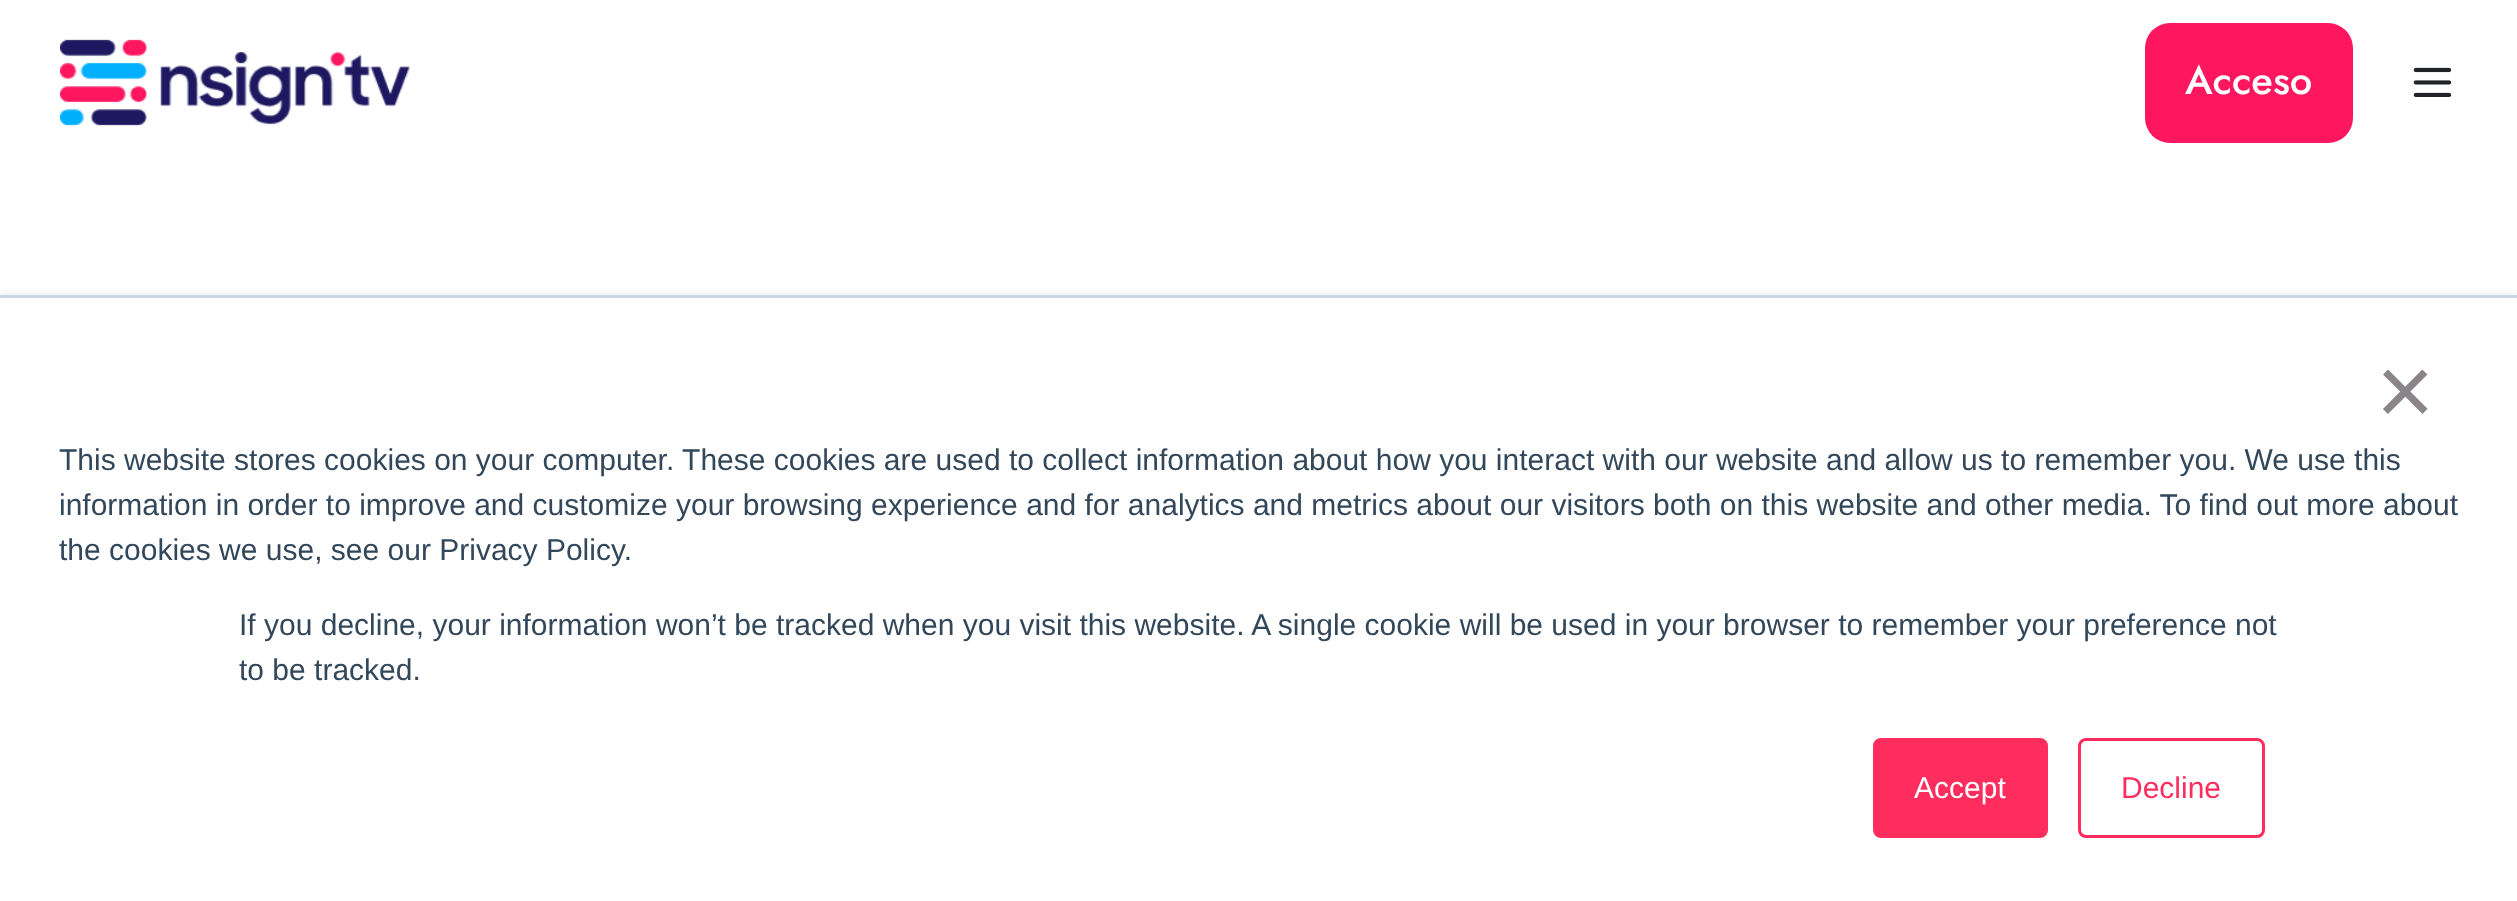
<?xml version="1.0" encoding="UTF-8"?>
<svg xmlns="http://www.w3.org/2000/svg" width="2517" height="901">
    <defs>
        <filter id="blur1" x="-50%" y="-200%" width="200%" height="500%"><feGaussianBlur stdDeviation="4"/></filter>
    </defs>
    <rect width="100%" height="100%" fill="#FFFFFF"/>
    <image x="60" y="39" width="350" height="87" href="img_01.png"/>
    <rect x="2145" y="23" width="208" height="120" rx="25" fill="#FE175F"/>
    <text x="2185" y="94" font-family="Jost" font-size="40" font-weight="500" fill="#FFFFFF">Acceso</text>
    <image x="2413" y="67" width="39" height="30" href="img_02.png"/>
    <rect x="0" y="293" width="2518" height="607" fill="#EAF0F6" filter="url(#blur1)"/>
    <rect x="0" y="298" width="2517" height="603" fill="#FFFFFF"/>
    <rect x="0" y="295" width="2517" height="3" fill="#CBD6E2"/>
    <text x="2376" y="425" font-family="Liberation Sans" font-size="100" fill="#8B8589">×</text>
    <text font-family="Liberation Sans" font-size="30" fill="#33475B">
        <tspan x="59" y="470">This website stores cookies on your computer. These cookies are used to collect information about how you interact with our website and allow us to remember you. We use this</tspan>
        <tspan x="59" y="515">information in order to improve and customize your browsing experience and for analytics and metrics about our visitors both on this website and other media. To find out more about</tspan>
        <tspan x="59" y="560">the cookies we use, see our Privacy Policy.</tspan>
    </text>
    <text font-family="Liberation Sans" font-size="30" fill="#33475B">
        <tspan x="239" y="635">If you decline, your information won’t be tracked when you visit this website. A single cookie will be used in your browser to remember your preference not</tspan>
        <tspan x="239" y="680">to be tracked.</tspan>
    </text>
    <rect x="1874.5" y="739.5" width="172" height="97" rx="6.5" fill="#FF2D5E" stroke="#FF2D5E" stroke-width="3"/>
    <text x="1914" y="798" font-family="Liberation Sans" font-size="30" fill="#FFFFFF">Accept</text>
    <rect x="2079.5" y="739.5" width="184" height="97" rx="6.5" fill="none" stroke="#FF2D5E" stroke-width="3"/>
    <text x="2121" y="798" font-family="Liberation Sans" font-size="30" fill="#FF2D5E">Decline</text>
</svg>
